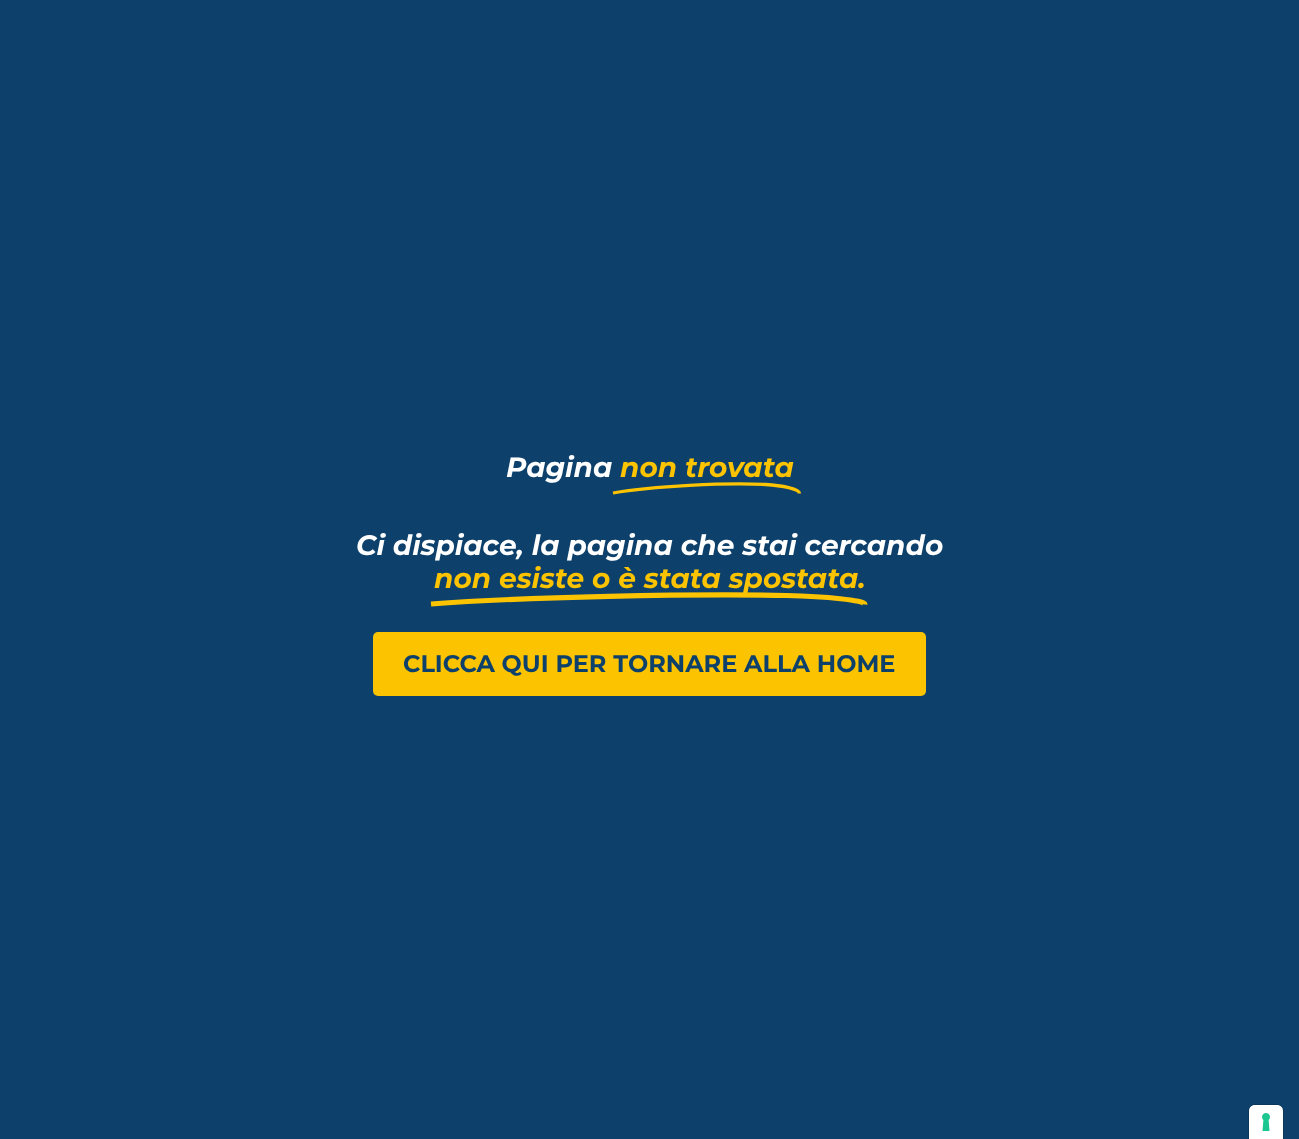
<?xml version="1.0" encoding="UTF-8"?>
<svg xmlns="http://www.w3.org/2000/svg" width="1299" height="1139">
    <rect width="100%" height="100%" fill="#0D416B"/>
    <text x="506" y="477" font-family="Montserrat" font-size="28" font-weight="700" font-style="italic" fill="#FFFFFF">Pagina</text>
    <text x="620" y="477" font-family="Montserrat" font-size="28" font-weight="700" font-style="italic" fill="#FCC300">non trovata</text>
    <path d="M 613 493 C 652.5 486 726.5 482.5 765.5 484.5 C 782 485.5 799.5 489 799.5 493.5" fill="none" stroke="#FCC300" stroke-width="3.3"/>
    <text x="356" y="555" font-family="Montserrat" font-size="28" font-weight="700" font-style="italic" fill="#FFFFFF">Ci dispiace, la pagina che stai cercando</text>
    <path d="M 431 604 C 522.5 597 695 593.5 786.5 595.5 C 824.5 596.5 865.5 600 865 604.5" fill="none" stroke="#FCC300" stroke-width="5.1"/>
    <text x="434" y="588" font-family="Montserrat" font-size="28" font-weight="700" font-style="italic" fill="#FCC300">non esiste o è stata spostata.</text>
    <rect x="373" y="632" width="553" height="64" rx="5" fill="#FCC300"/>
    <text x="403" y="672" font-family="Montserrat" font-size="24" font-weight="700" fill="#0D416B">CLICCA QUI PER TORNARE ALLA HOME</text>
    <path d="M 1255 1104.5 H 1277 C 1280.5 1104.5 1283.5 1107.5 1283.5 1111 V 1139.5 H 1248.5 V 1111 C 1248.5 1107.5 1251.5 1104.5 1255 1104.5 Z" fill="none" stroke="#0B375B"/>
    <path d="M 1255 1105 H 1277 C 1280.5 1105 1283 1107.5 1283 1111 V 1139 H 1249 V 1111 C 1249 1107.5 1251.5 1105 1255 1105 Z" fill="#FFFFFF"/>
    <image x="1262" y="1113" width="8" height="18" href="img_01.png"/>
</svg>
